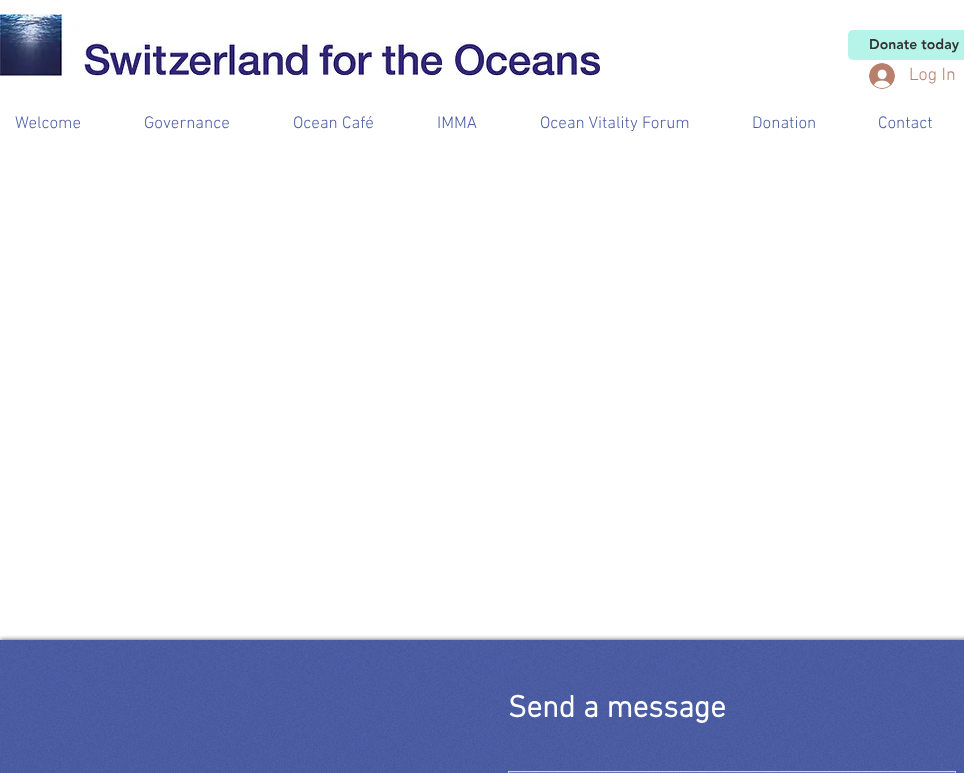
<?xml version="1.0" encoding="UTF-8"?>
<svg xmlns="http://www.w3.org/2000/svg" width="964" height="773">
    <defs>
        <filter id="blur1" x="-50%" y="-200%" width="200%" height="500%"><feGaussianBlur stdDeviation="2.5"/></filter>
    </defs>
    <rect width="100%" height="100%" fill="#FFFFFF"/>
    <image x="0" y="14" width="600" height="62" href="img_01.png"/>
    <rect x="848" y="30" width="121" height="30" rx="5" fill="#B6F3E8"/>
    <text x="869" y="49" font-family="'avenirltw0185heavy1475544'" font-size="14" font-weight="900" fill="#323232">Donate today</text>
    <image x="869" y="63" width="26" height="26" href="img_02.png"/>
    <text x="909" y="80" font-family="'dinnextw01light'" font-size="18" font-weight="300" fill="#B97F6D">Log In</text>
    <text x="15" y="128" font-family="'dinnextw01light'" font-size="17" font-weight="300" fill="#4B5DA6">Welcome</text>
    <text x="144" y="128" font-family="'dinnextw01light'" font-size="17" font-weight="300" fill="#4B5DA6">Governance</text>
    <text x="293" y="128" font-family="'dinnextw01light'" font-size="17" font-weight="300" fill="#4B5DA6">Ocean Café</text>
    <text x="437" y="128" font-family="'dinnextw01light'" font-size="17" font-weight="300" fill="#4B5DA6">IMMA</text>
    <text x="540" y="128" font-family="'dinnextw01light'" font-size="17" font-weight="300" fill="#4B5DA6">Ocean Vitality Forum</text>
    <text x="752" y="128" font-family="'dinnextw01light'" font-size="17" font-weight="300" fill="#4B5DA6">Donation</text>
    <text x="878" y="128" font-family="'dinnextw01light'" font-size="17" font-weight="300" fill="#4B5DA6">Contact</text>
    <rect x="0" y="640" width="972" height="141" fill="#000000" fill-opacity="0.7" filter="url(#blur1)"/>
    <rect x="0" y="640" width="964" height="133" fill="#4B5DA6"/>
    <image x="0" y="640" width="964" height="133" href="img_03.png"/>
    <text x="508" y="717" font-family="'dinnextw01light'" font-size="31" font-weight="700" fill="#FFFFFF">Send a message</text>
    <rect x="508" y="771" width="448" height="2" fill="#FFFFFF" fill-opacity="0.14"/>
    <rect x="508.5" y="771.5" width="447" height="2" fill="none" stroke="#FFFFFF" stroke-opacity="0.66"/>
</svg>
